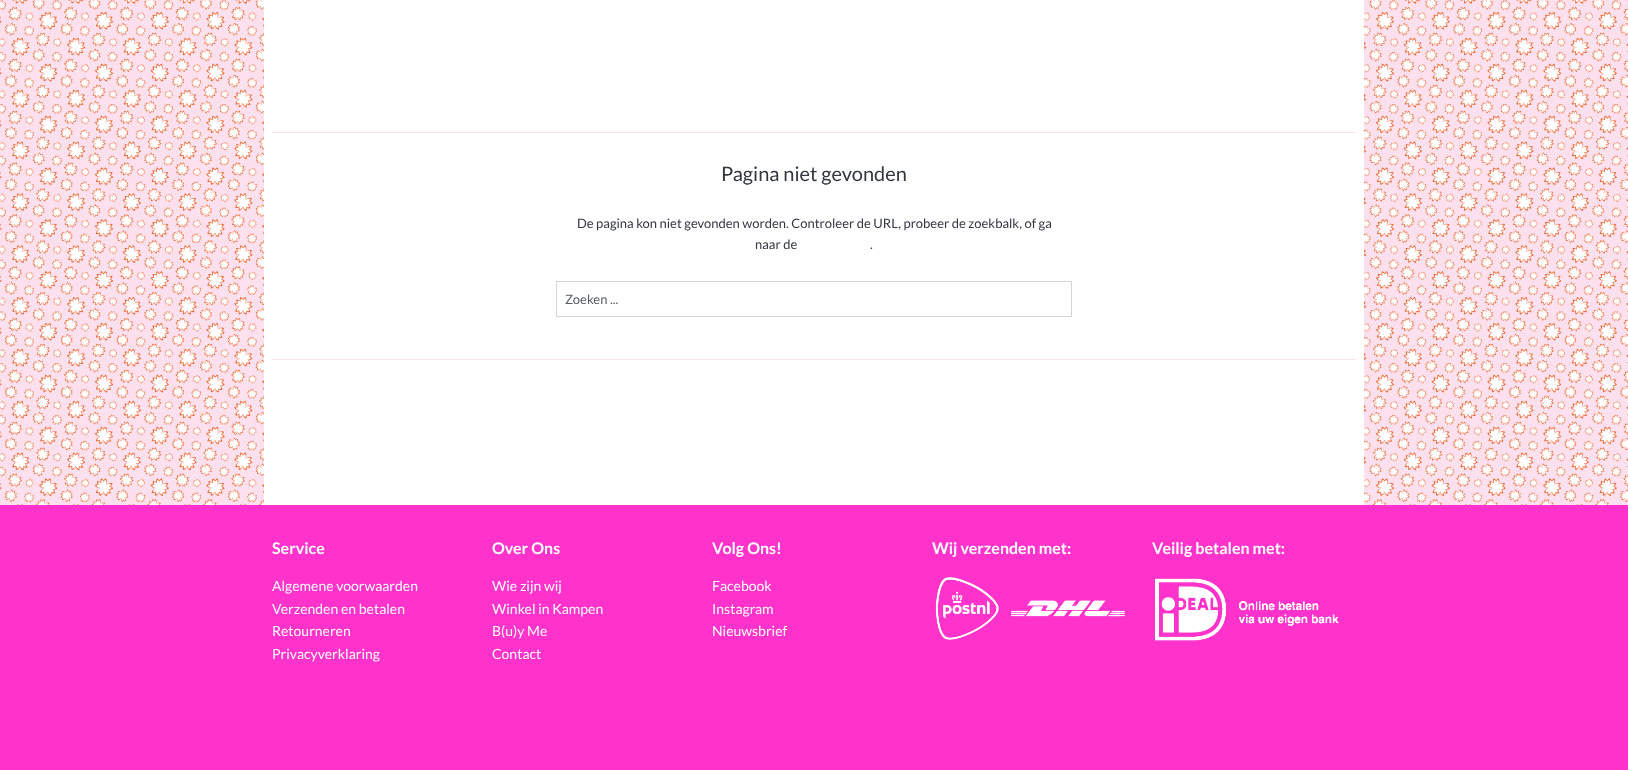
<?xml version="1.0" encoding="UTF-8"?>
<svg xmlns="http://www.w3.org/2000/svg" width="1628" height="770">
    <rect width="100%" height="100%" fill="#FCE0ED"/>
    <image x="0" y="0" width="1628" height="505" href="img_01.png"/>
    <rect x="264" y="0" width="1100" height="505" fill="#FFFFFF"/>
    <rect x="272" y="132" width="1084" height="1" fill="#FCE0ED"/>
    <rect x="272" y="359" width="1084" height="1" fill="#FCE0ED"/>
    <text x="721" y="181" font-family="Lato" font-size="20" fill="#333740">Pagina niet gevonden</text>
    <text x="577" y="228" font-family="Lato" font-size="13" fill="#333740">De pagina kon niet gevonden worden. Controleer de URL, probeer de zoekbalk, of ga</text>
    <text x="755" y="249" font-family="Lato" font-size="13" fill="#333740">naar de</text>
    <text x="870" y="249" font-family="Lato" font-size="13" fill="#333740">.</text>
    <rect x="556.5" y="281.5" width="515" height="35" fill="none" stroke="#D3D5D9"/>
    <text x="565" y="304" font-family="Lato" font-size="13" fill="#575B62">Zoeken ...</text>
    <rect x="0" y="505" width="1628" height="265" fill="#FF33CC"/>
    <text x="272" y="554" font-family="Lato" font-size="16" font-weight="700" fill="#FFFFFF">Service</text>
    <text font-family="Lato" font-size="14" fill="#FFFFFF">
        <tspan x="272" y="591">Algemene voorwaarden</tspan>
        <tspan x="272" y="614">Verzenden en betalen</tspan>
        <tspan x="272" y="636">Retourneren</tspan>
        <tspan x="272" y="659">Privacyverklaring</tspan>
    </text>
    <text x="492" y="554" font-family="Lato" font-size="16" font-weight="700" fill="#FFFFFF">Over Ons</text>
    <text font-family="Lato" font-size="14" fill="#FFFFFF">
        <tspan x="492" y="591">Wie zijn wij</tspan>
        <tspan x="492" y="614">Winkel in Kampen</tspan>
        <tspan x="492" y="636">B(u)y Me</tspan>
        <tspan x="492" y="659">Contact</tspan>
    </text>
    <text x="712" y="554" font-family="Lato" font-size="16" font-weight="700" fill="#FFFFFF">Volg Ons!</text>
    <text font-family="Lato" font-size="14" fill="#FFFFFF">
        <tspan x="712" y="591">Facebook</tspan>
        <tspan x="712" y="614">Instagram</tspan>
        <tspan x="712" y="636">Nieuwsbrief</tspan>
    </text>
    <text x="932" y="554" font-family="Lato" font-size="16" font-weight="700" fill="#FFFFFF">Wij verzenden met:</text>
    <image x="935" y="577" width="190" height="63" href="img_02.png"/>
    <text x="1152" y="554" font-family="Lato" font-size="16" font-weight="700" fill="#FFFFFF">Veilig betalen met:</text>
    <image x="1155" y="578" width="184" height="63" href="img_03.png"/>
</svg>
